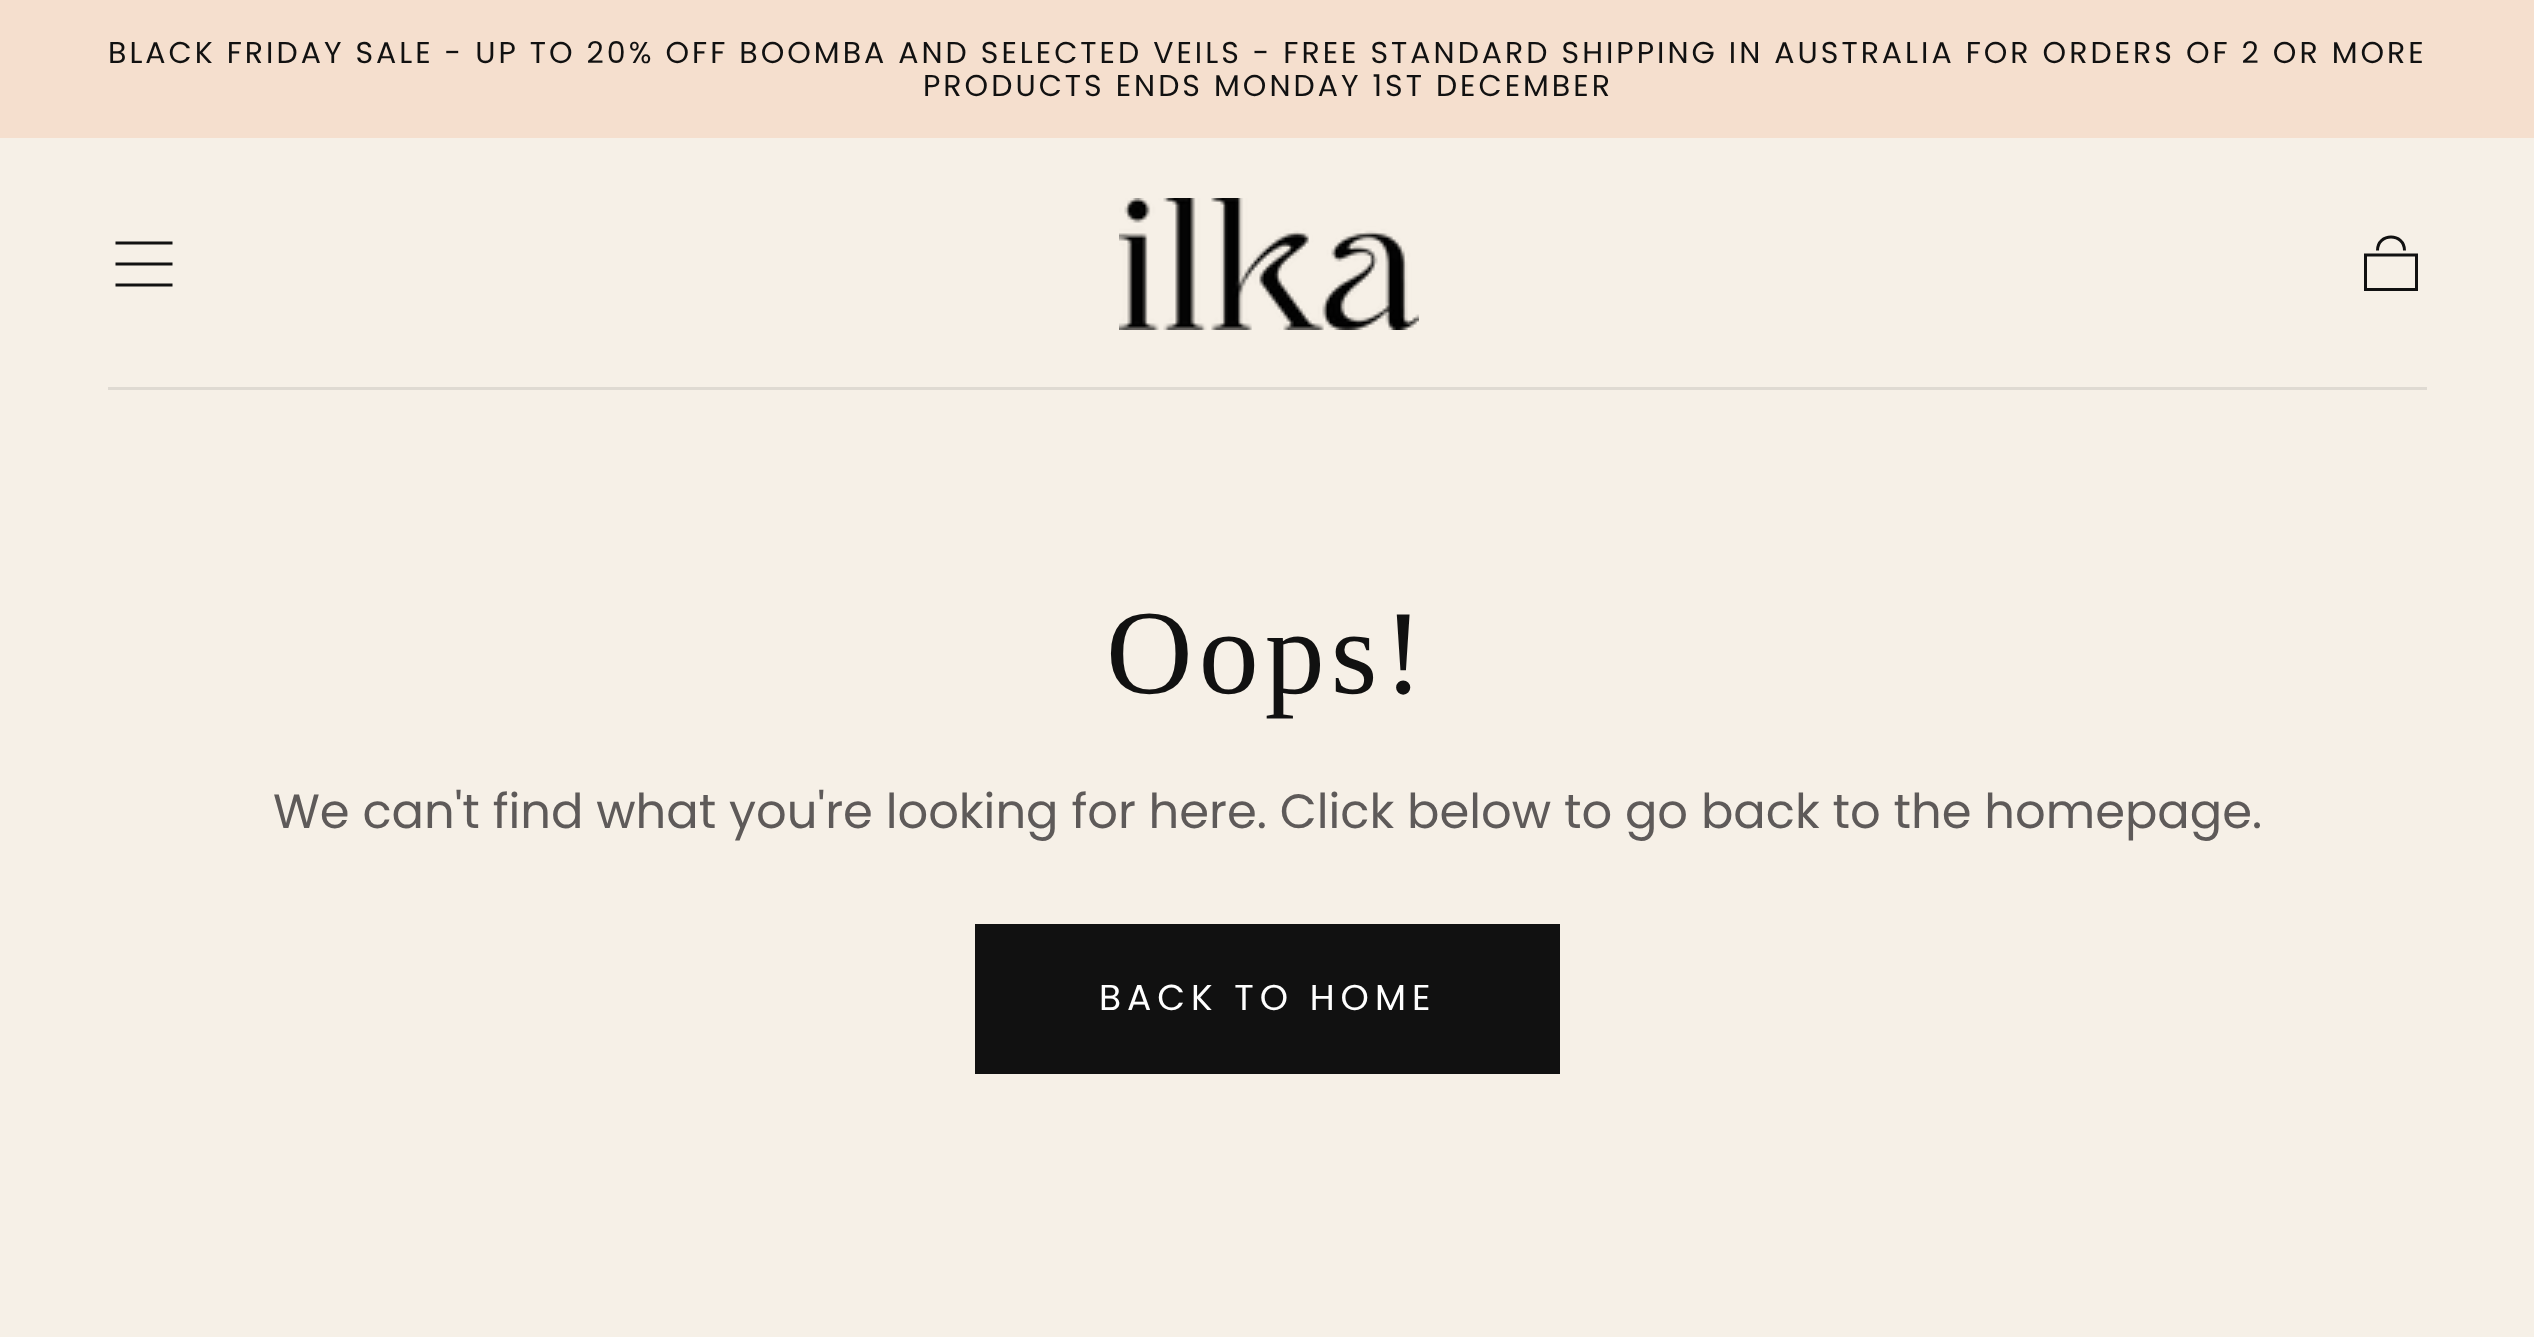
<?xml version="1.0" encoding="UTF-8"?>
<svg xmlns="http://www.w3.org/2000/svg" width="2534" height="1337">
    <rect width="100%" height="100%" fill="#F6F0E7"/>
    <rect x="0" y="0" width="2534" height="138" fill="#F5DFCE"/>
    <text x="108" y="63" font-family="Poppins" font-size="30" letter-spacing="3" fill="#111111">BLACK FRIDAY SALE - UP TO 20% OFF BOOMBA AND SELECTED VEILS - FREE STANDARD SHIPPING IN AUSTRALIA FOR ORDERS OF 2 OR MORE</text>
    <text x="923" y="96" font-family="Poppins" font-size="30" letter-spacing="3" fill="#111111">PRODUCTS ENDS MONDAY 1ST DECEMBER</text>
    <path d="M 117 243 H 171 M 117 264 H 171 M 117 285 H 171" fill="none" stroke="#111111" stroke-width="3" stroke-linecap="square"/>
    <image x="1119" y="198" width="300" height="132" href="img_01.png"/>
    <path d="M 2416.5 289.5 H 2365.5 V 255 H 2416.5 Z M 2404.5 250.5 C 2404.5 232.5 2377.5 232.5 2377.5 250.5" fill="none" stroke="#111111" stroke-width="3"/>
    <rect x="108" y="387" width="2319" height="3" fill="#DFDAD2"/>
    <text x="1106" y="693" font-family="Liberation Serif" font-size="120" letter-spacing="6" fill="#111111">Oops!</text>
    <text x="273" y="828" font-family="Poppins" font-size="48" fill="#5E5A59">We can't find what you're looking for here. Click below to go back to the homepage.</text>
    <rect x="975" y="924" width="585" height="150" fill="#111111"/>
    <text x="1099" y="1010" font-family="Poppins" font-size="36" letter-spacing="6" fill="#FFFFFF">BACK TO HOME</text>
</svg>
